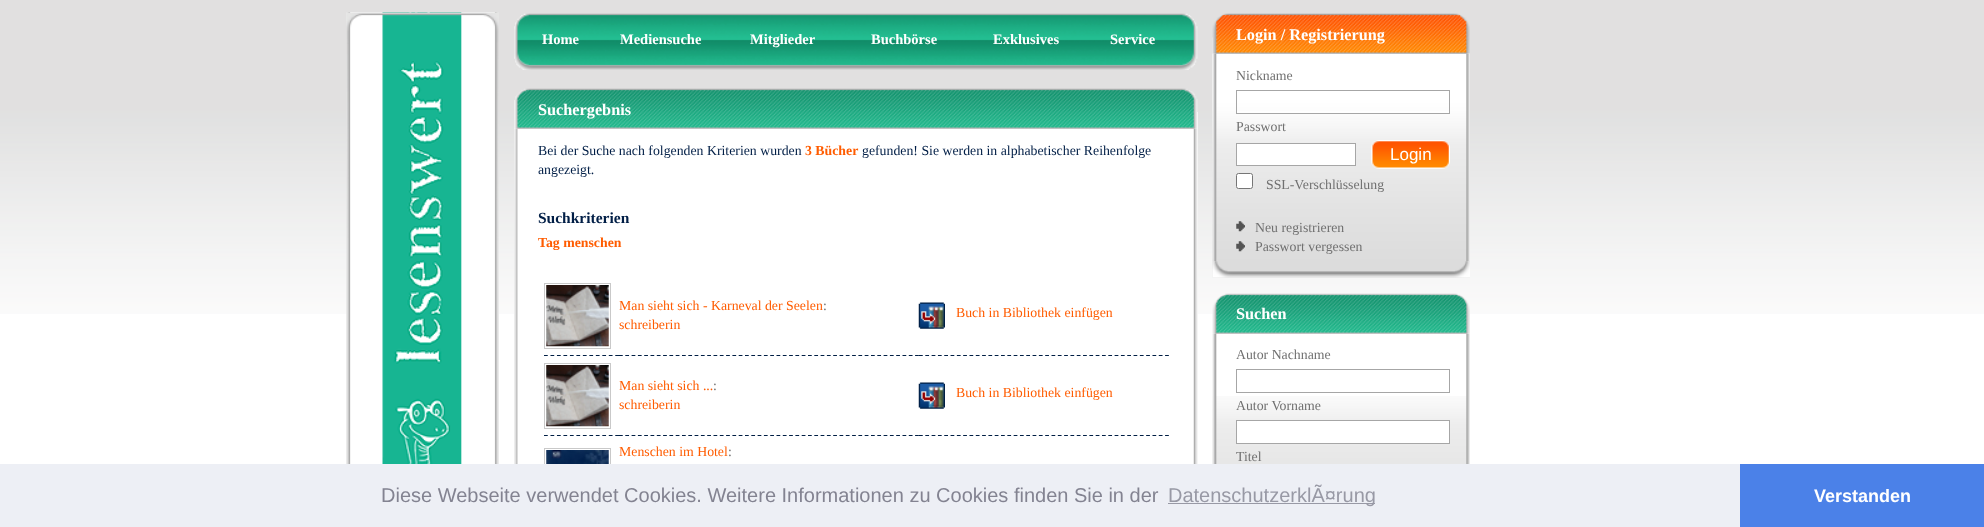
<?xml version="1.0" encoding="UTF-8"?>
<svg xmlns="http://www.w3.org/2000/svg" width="1984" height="527">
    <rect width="100%" height="100%" fill="#FFFFFF"/>
    <image x="0" y="0" width="1984" height="314" href="img_01.png"/>
    <image x="346" y="12" width="153" height="452" href="img_02.png"/>
    <image x="346" y="12" width="153" height="452" href="img_03.png"/>
    <image x="514" y="13" width="684" height="57" href="img_04.png"/>
    <text x="542" y="44" font-family="Liberation Serif" font-size="14.5" font-weight="700" fill="#FFFFFF">Home</text>
    <text x="620" y="44" font-family="Liberation Serif" font-size="14.5" font-weight="700" fill="#FFFFFF">Mediensuche</text>
    <text x="750" y="44" font-family="Liberation Serif" font-size="14.5" font-weight="700" fill="#FFFFFF">Mitglieder</text>
    <text x="871" y="44" font-family="Liberation Serif" font-size="14.5" font-weight="700" fill="#FFFFFF">Buchbörse</text>
    <text x="993" y="44" font-family="Liberation Serif" font-size="14.5" font-weight="700" fill="#FFFFFF">Exklusives</text>
    <text x="1110" y="44" font-family="Liberation Serif" font-size="14.5" font-weight="700" fill="#FFFFFF">Service</text>
    <rect x="514" y="112" width="684" height="202" fill="#FFFFFF"/>
    <image x="514" y="88" width="684" height="41" href="img_05.png"/>
    <text x="538" y="115" font-family="Liberation Serif" font-size="16.25" font-weight="700" fill="#FFFFFF">Suchergebnis</text>
    <image x="514" y="128" width="684" height="336" href="img_06.png"/>
    <text x="538" y="155" font-family="Liberation Serif" font-size="13.8" fill="#011E46">Bei der Suche nach folgenden Kriterien wurden</text>
    <text x="805" y="155" font-family="Liberation Serif" font-size="13.8" font-weight="700" fill="#FF5C00">3 Bücher</text>
    <text x="862" y="155" font-family="Liberation Serif" font-size="13.8" fill="#011E46">gefunden! Sie werden in alphabetischer Reihenfolge</text>
    <text x="538" y="174" font-family="Liberation Serif" font-size="13.8" fill="#011E46">angezeigt.</text>
    <text x="538" y="223" font-family="Liberation Serif" font-size="15.5" font-weight="700" fill="#011E46">Suchkriterien</text>
    <text x="538" y="247" font-family="Liberation Serif" font-size="13.8" font-weight="700" fill="#FF5C00">Tag menschen</text>
    <path d="M 544 355.5 H 619" fill="none" stroke="#001E44" stroke-width="1.2" stroke-dasharray="3.75 2.73"/>
    <rect x="544.5" y="283.5" width="66" height="65" fill="none" stroke="#C9C9C9"/>
    <image x="546" y="285" width="63" height="62" href="img_07.png"/>
    <path d="M 619 355.5 H 919" fill="none" stroke="#001E44" stroke-width="1.2" stroke-dasharray="3.75 2.55"/>
    <text x="619" y="310" font-family="Liberation Serif" font-size="13.8" fill="#FF5C00">Man sieht sich - Karneval der Seelen</text>
    <text x="823" y="310" font-family="Liberation Serif" font-size="13.8" fill="#707070">:</text>
    <text x="619" y="329" font-family="Liberation Serif" font-size="13.8" fill="#FF5C00">schreiberin</text>
    <path d="M 919 355.5 H 1169" fill="none" stroke="#001E44" stroke-width="1.2" stroke-dasharray="3.75 2.56"/>
    <image x="918" y="302" width="27" height="27" href="img_08.png"/>
    <text x="956" y="317" font-family="Liberation Serif" font-size="13.8" fill="#FF5C00">Buch in Bibliothek einfügen</text>
    <path d="M 544 435.5 H 619" fill="none" stroke="#001E44" stroke-width="1.2" stroke-dasharray="3.75 2.73"/>
    <rect x="544.5" y="363.5" width="66" height="65" fill="none" stroke="#C9C9C9"/>
    <image x="546" y="365" width="63" height="62" href="img_09.png"/>
    <path d="M 619 435.5 H 919" fill="none" stroke="#001E44" stroke-width="1.2" stroke-dasharray="3.75 2.55"/>
    <text x="619" y="390" font-family="Liberation Serif" font-size="13.8" fill="#FF5C00">Man sieht sich ...</text>
    <text x="713" y="390" font-family="Liberation Serif" font-size="13.8" fill="#707070">:</text>
    <text x="619" y="409" font-family="Liberation Serif" font-size="13.8" fill="#FF5C00">schreiberin</text>
    <path d="M 919 435.5 H 1169" fill="none" stroke="#001E44" stroke-width="1.2" stroke-dasharray="3.75 2.56"/>
    <image x="918" y="382" width="27" height="27" href="img_08.png"/>
    <text x="956" y="397" font-family="Liberation Serif" font-size="13.8" fill="#FF5C00">Buch in Bibliothek einfügen</text>
    <rect x="544.5" y="448.5" width="66" height="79" fill="none" stroke="#C9C9C9"/>
    <image x="546" y="450" width="63" height="14" href="img_10.png"/>
    <text x="619" y="456" font-family="Liberation Serif" font-size="13.8" fill="#FF5C00">Menschen im Hotel</text>
    <text x="728" y="456" font-family="Liberation Serif" font-size="13.8" fill="#707070">:</text>
    <image x="1212" y="37" width="258" height="241" href="img_11.png"/>
    <image x="1212" y="13" width="258" height="41" href="img_12.png"/>
    <text x="1236" y="40" font-family="Liberation Serif" font-size="16.25" font-weight="700" fill="#FFFFFF">Login / Registrierung</text>
    <image x="1213" y="53" width="257" height="209" href="img_13.png"/>
    <text x="1236" y="80" font-family="Liberation Serif" font-size="13.8" fill="#707070">Nickname</text>
    <rect x="1237" y="111" width="212" height="2" fill="#FFFFFF"/>
    <rect x="1236.5" y="90.5" width="213" height="23" fill="none" stroke="#A6A6A6"/>
    <text x="1236" y="131" font-family="Liberation Serif" font-size="13.8" fill="#707070">Passwort</text>
    <rect x="1236.5" y="143.5" width="119" height="22" fill="#FFFFFF" stroke="#A6A6A6"/>
    <image x="1371" y="140" width="79" height="29" href="img_14.png"/>
    <text x="1390" y="160" font-family="Liberation Sans" font-size="17" fill="#FFFFFF">Login</text>
    <rect x="1236.5" y="173.5" width="16" height="15" rx="2" fill="#FFFFFF" stroke="#767676"/>
    <text x="1266" y="189" font-family="Liberation Serif" font-size="13.8" fill="#707070">SSL-Verschlüsselung</text>
    <image x="1236" y="221" width="9" height="11" href="img_15.png"/>
    <text x="1255" y="232" font-family="Liberation Serif" font-size="13.8" fill="#707070">Neu registrieren</text>
    <image x="1236" y="241" width="9" height="11" href="img_16.png"/>
    <text x="1255" y="251" font-family="Liberation Serif" font-size="13.8" fill="#707070">Passwort vergessen</text>
    <image x="1212" y="261" width="258" height="17" href="img_17.png"/>
    <image x="1212" y="396" width="255" height="68" href="img_18.png"/>
    <image x="1212" y="293" width="258" height="41" href="img_19.png"/>
    <text x="1236" y="319" font-family="Liberation Serif" font-size="16.25" font-weight="700" fill="#FFFFFF">Suchen</text>
    <image x="1212" y="333" width="258" height="131" href="img_20.png"/>
    <text x="1236" y="359" font-family="Liberation Serif" font-size="13.8" fill="#707070">Autor Nachname</text>
    <rect x="1236.5" y="369.5" width="213" height="23" fill="none" stroke="#A6A6A6"/>
    <text x="1236" y="410" font-family="Liberation Serif" font-size="13.8" fill="#707070">Autor Vorname</text>
    <rect x="1236.5" y="420.5" width="213" height="23" fill="#FFFFFF" stroke="#A6A6A6"/>
    <text x="1236" y="461" font-family="Liberation Serif" font-size="13.8" fill="#707070">Titel</text>
    <rect x="0" y="464" width="1740" height="63" fill="#EDEFF5"/>
    <text x="381" y="502" font-family="Liberation Sans" font-size="20" fill="#838391">Diese Webseite verwendet Cookies. Weitere Informationen zu Cookies finden Sie in der</text>
    <rect x="1168" y="503" width="207" height="1" fill="#9899A5"/>
    <text x="1168" y="502" font-family="Liberation Sans" font-size="20" fill="#9899A5">DatenschutzerklÃ¤rung</text>
    <rect x="1740" y="464" width="244" height="63" fill="#4B81E8"/>
    <text x="1814" y="502" font-family="Liberation Sans" font-size="18" font-weight="700" fill="#FFFFFF">Verstanden</text>
</svg>
